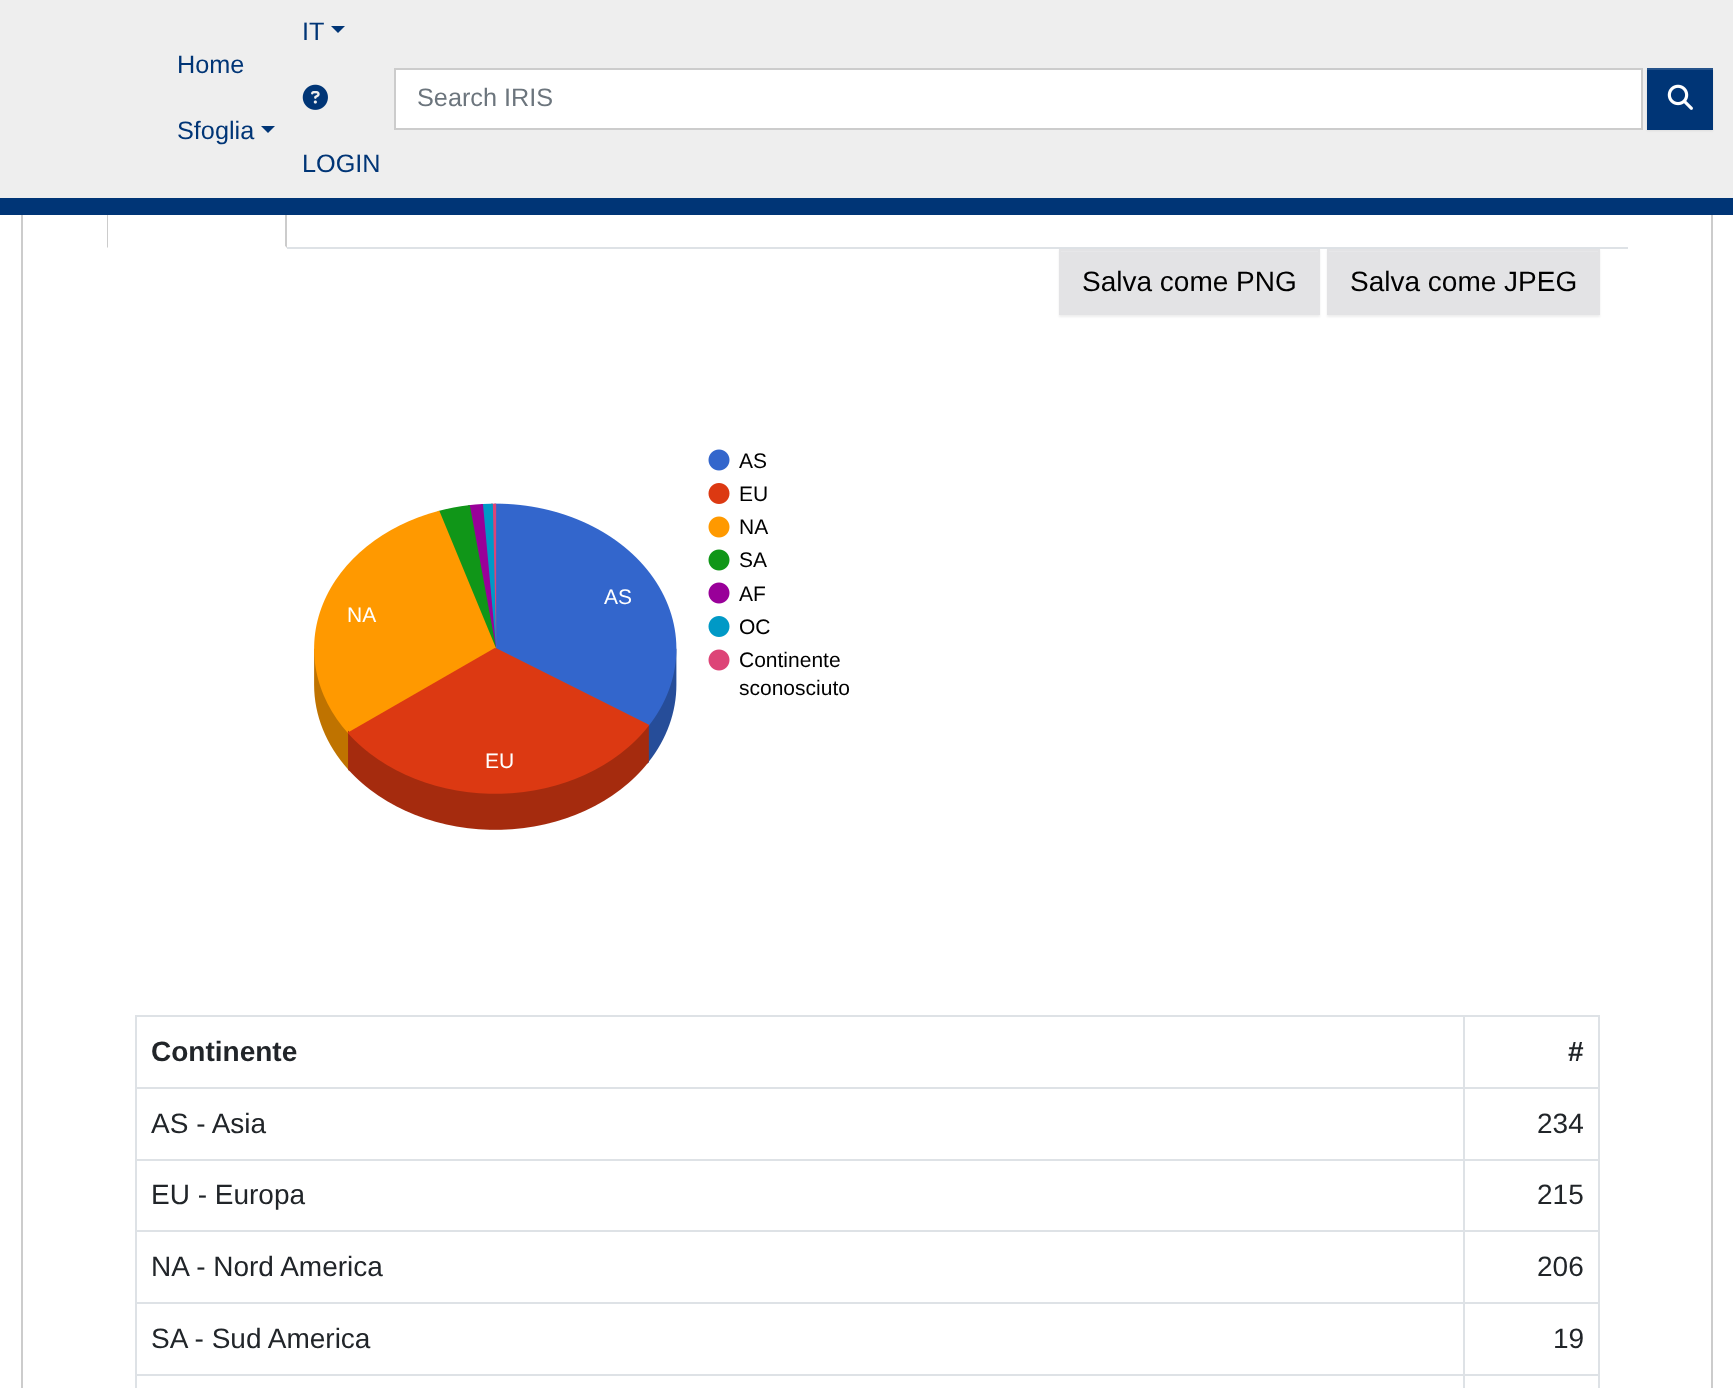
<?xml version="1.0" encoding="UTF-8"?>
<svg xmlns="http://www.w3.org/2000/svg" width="1733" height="1388">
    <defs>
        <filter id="blur1" x="-50%" y="-200%" width="200%" height="500%"><feGaussianBlur stdDeviation="1"/></filter>
    </defs>
    <rect width="100%" height="100%" fill="#FFFFFF"/>
    <rect x="22" y="-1" width="1690" height="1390" fill="none" stroke="#CCCCCC" stroke-width="2"/>
    <path d="M 287 248 V 191 C 287 188 286 185 284 183 L 282 185 C 284 186 285 189 285 191 V 246 Z" fill="#CCCCCC"/>
    <path d="M 286 248 H 107 L 108 247 H 285 V 246 Z" fill="#FFFFFF"/>
    <path d="M 107 248 V 191 C 107 188 108 185 110 183 L 111 184 C 109 186 108 188 108 191 V 247 Z" fill="#CCCCCC"/>
    <rect x="0" y="0" width="1733" height="198" fill="#EEEEEE"/>
    <rect x="0" y="198" width="1733" height="17" fill="#003576"/>
    <text x="177" y="73" font-family="Liberation Sans" font-size="25.25" fill="#003576">Home</text>
    <text x="177" y="139" font-family="Liberation Sans" font-size="25.25" fill="#003576">Sfoglia</text>
    <path d="M 261 126 H 275 L 268 133 Z" fill="#003576"/>
    <text x="302" y="40" font-family="Liberation Sans" font-size="25.25" fill="#003576">IT</text>
    <path d="M 331 26 H 345 L 338 33 Z" fill="#003576"/>
    <image x="302" y="84" width="26" height="26" href="img_01.png"/>
    <text x="302" y="172" font-family="Liberation Sans" font-size="25.25" fill="#003576">LOGIN</text>
    <rect x="395" y="69" width="1247" height="60" fill="#FFFFFF" stroke="#CCCCCC" stroke-width="2"/>
    <text x="417" y="106" font-family="Liberation Sans" font-size="25.25" fill="#6C757D">Search IRIS</text>
    <rect x="1647" y="70" width="66" height="61" fill="#000000" fill-opacity="0.07" filter="url(#blur1)"/>
    <rect x="1647" y="70" width="66" height="60" fill="#003576"/>
    <rect x="1647" y="68" width="66" height="2" fill="#26538B"/>
    <image x="1667" y="84" width="26" height="26" href="img_02.png"/>
    <rect x="287" y="247" width="1341" height="2" fill="#DEE2E6"/>
    <rect x="1059" y="250" width="261" height="67" fill="#000000" fill-opacity="0.07" filter="url(#blur1)"/>
    <rect x="1061" y="252" width="257" height="61" fill="#E3E3E5"/>
    <rect x="1061" y="251" width="257" height="1" fill="#E7E7E9"/>
    <rect x="1060" y="250" width="259" height="64" fill="none" stroke="#E3E3E5" stroke-width="2"/>
    <text x="1082" y="291" font-family="Liberation Sans" font-size="28" fill="#000000">Salva come PNG</text>
    <rect x="1327" y="250" width="273" height="67" fill="#000000" fill-opacity="0.07" filter="url(#blur1)"/>
    <rect x="1329" y="252" width="269" height="61" fill="#E3E3E5"/>
    <rect x="1328" y="251" width="270" height="1" fill="#E7E7E9"/>
    <rect x="1328" y="250" width="271" height="64" fill="none" stroke="#E3E3E5" stroke-width="2"/>
    <text x="1350" y="291" font-family="Liberation Sans" font-size="28" fill="#000000">Salva come JPEG</text>
    <image x="314" y="449" width="416" height="381" href="img_03.png"/>
    <text font-family="Liberation Sans" font-size="21" fill="#000000">
        <tspan x="739" y="468">AS</tspan>
        <tspan x="739" y="501">EU</tspan>
        <tspan x="739" y="534">NA</tspan>
        <tspan x="739" y="567">SA</tspan>
    </text>
    <text x="604" y="604" font-family="Liberation Sans" font-size="21" fill="#FFFFFF">AS</text>
    <text x="739" y="601" font-family="Liberation Sans" font-size="21" fill="#000000">AF</text>
    <text x="347" y="622" font-family="Liberation Sans" font-size="21" fill="#FFFFFF">NA</text>
    <text font-family="Liberation Sans" font-size="21" fill="#000000">
        <tspan x="739" y="634">OC</tspan>
        <tspan x="739" y="667">Continente</tspan>
        <tspan x="739" y="695">sconosciuto</tspan>
    </text>
    <text x="485" y="768" font-family="Liberation Sans" font-size="21" fill="#FFFFFF">EU</text>
    <rect x="135" y="1374" width="1465" height="2" fill="#DEE2E6"/>
    <rect x="135" y="1015" width="1465" height="2" fill="#DEE2E6"/>
    <rect x="135" y="1087" width="1465" height="2" fill="#DEE2E6"/>
    <rect x="135" y="1159" width="1465" height="2" fill="#DEE2E6"/>
    <rect x="135" y="1230" width="1465" height="2" fill="#DEE2E6"/>
    <rect x="135" y="1302" width="1465" height="2" fill="#DEE2E6"/>
    <rect x="135" y="1015" width="2" height="373" fill="#DEE2E6"/>
    <rect x="1598" y="1015" width="2" height="373" fill="#DEE2E6"/>
    <rect x="1463" y="1015" width="2" height="373" fill="#DEE2E6"/>
    <text x="151" y="1061" font-family="Liberation Sans" font-size="28" font-weight="700" fill="#212529">Continente</text>
    <text x="1568" y="1061" font-family="Liberation Sans" font-size="28" font-weight="700" fill="#212529">#</text>
    <text x="151" y="1133" font-family="Liberation Sans" font-size="28" fill="#212529">AS - Asia</text>
    <text x="1537" y="1133" font-family="Liberation Sans" font-size="28" fill="#212529">234</text>
    <text x="151" y="1204" font-family="Liberation Sans" font-size="28" fill="#212529">EU - Europa</text>
    <text x="1537" y="1204" font-family="Liberation Sans" font-size="28" fill="#212529">215</text>
    <text x="151" y="1276" font-family="Liberation Sans" font-size="28" fill="#212529">NA - Nord America</text>
    <text x="1537" y="1276" font-family="Liberation Sans" font-size="28" fill="#212529">206</text>
    <text x="151" y="1348" font-family="Liberation Sans" font-size="28" fill="#212529">SA - Sud America</text>
    <text x="1553" y="1348" font-family="Liberation Sans" font-size="28" fill="#212529">19</text>
</svg>
